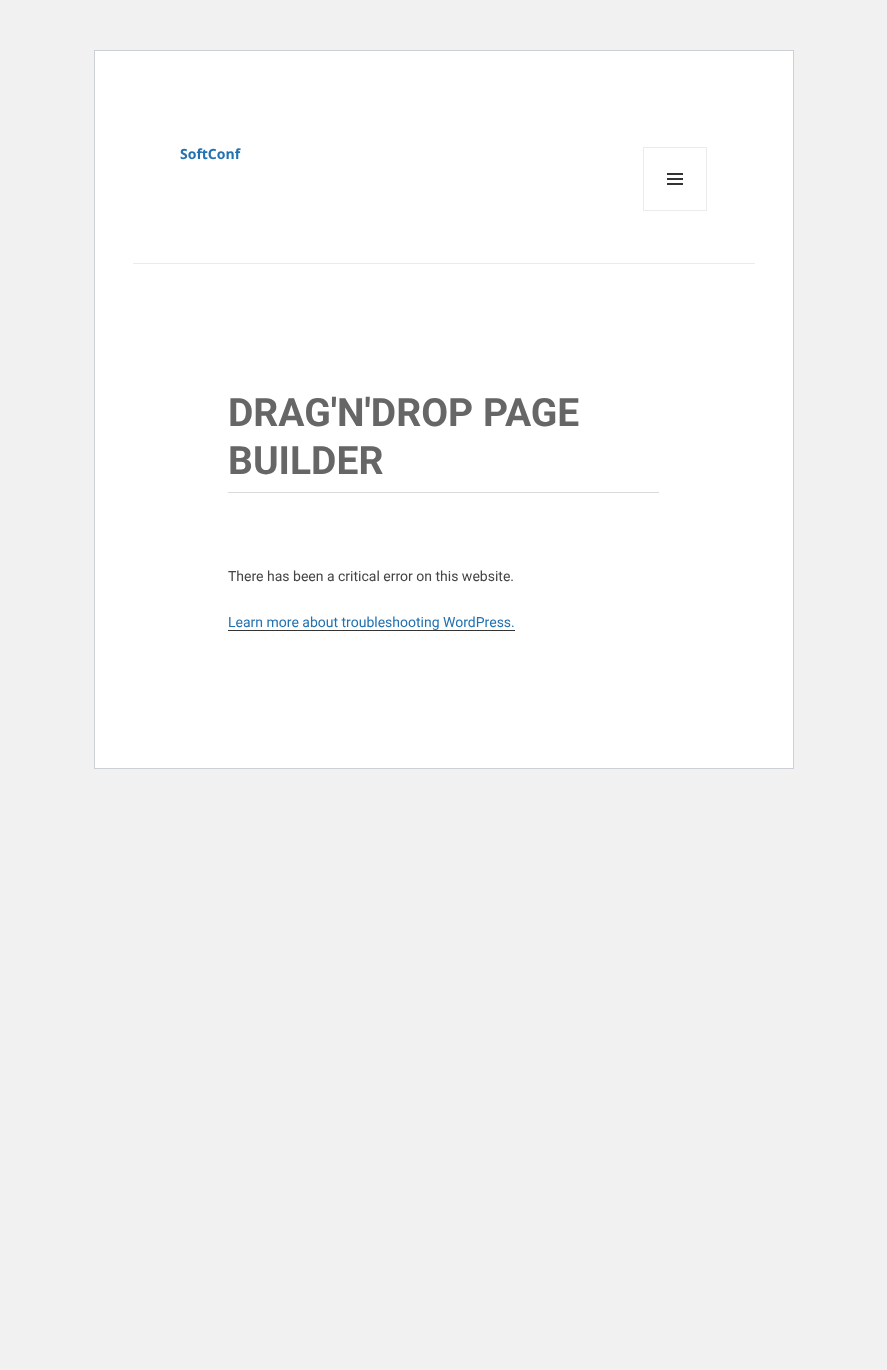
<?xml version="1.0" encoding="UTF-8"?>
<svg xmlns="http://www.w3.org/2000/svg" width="887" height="1370">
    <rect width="100%" height="100%" fill="#F1F1F1"/>
    <rect x="94.5" y="50.5" width="699" height="718" fill="#FFFFFF" stroke="#CCD0D4"/>
    <rect x="133" y="263" width="622" height="1" fill="#EBEBEB"/>
    <text x="180" y="159" font-family="Noto Sans" font-size="14" font-weight="700" fill="#2271B1">SoftConf</text>
    <rect x="643.5" y="147.5" width="63" height="63" fill="none" stroke="#EBEBEB"/>
    <image x="667" y="173" width="16" height="12" href="img_01.png"/>
    <rect x="228" y="492" width="431" height="1" fill="#DADADA"/>
    <text font-family="Roboto" font-size="39" font-weight="700" fill="#666666">
        <tspan x="228" y="426">DRAG'N'DROP PAGE</tspan>
        <tspan x="228" y="474">BUILDER</tspan>
    </text>
    <text x="228" y="581" font-family="Roboto" font-size="14" fill="#444444">There has been a critical error on this website.</text>
    <text x="228" y="627" font-family="Roboto" font-size="14" fill="#2271B1">Learn more about troubleshooting WordPress.</text>
    <rect x="228" y="630" width="287" height="1" fill="#333333"/>
</svg>
